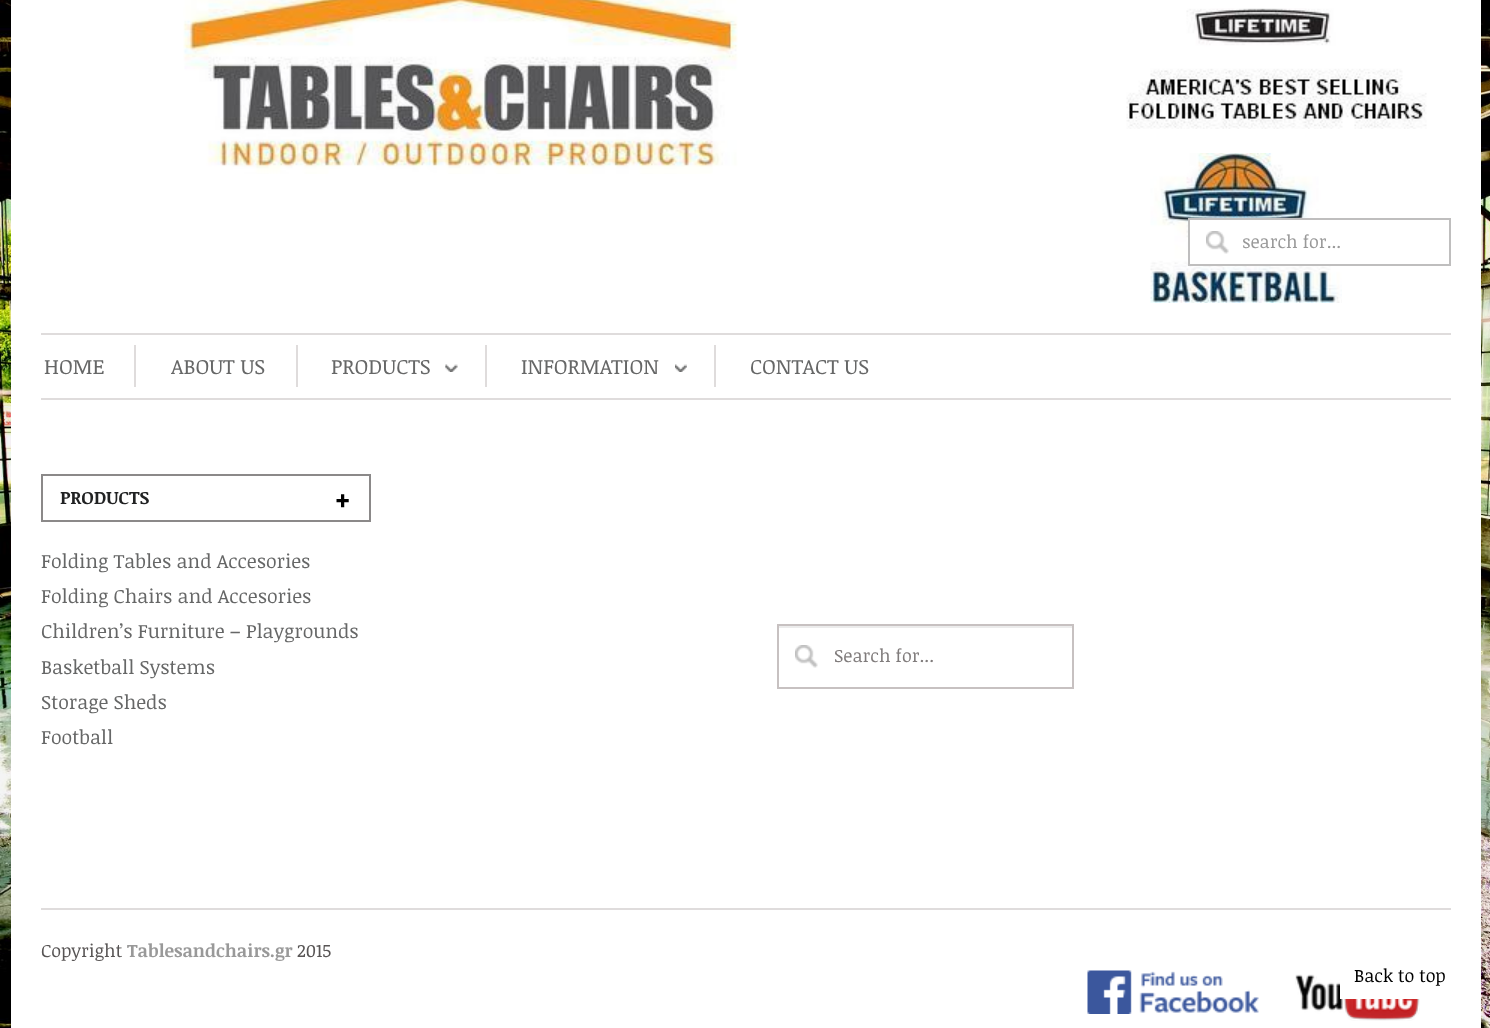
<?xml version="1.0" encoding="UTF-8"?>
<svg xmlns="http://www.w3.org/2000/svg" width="1490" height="1028">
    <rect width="100%" height="100%" fill="#FFFFFF"/>
    <image x="0" y="0" width="1490" height="1028" href="img_01.png"/>
    <rect x="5" y="-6" width="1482" height="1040" fill="none" stroke="#000000" stroke-opacity="0.04" stroke-width="12"/>
    <rect x="11" y="0" width="1470" height="1028" fill="#FFFFFF"/>
    <image x="183" y="0" width="555" height="174" href="img_02.png"/>
    <image x="1126" y="8" width="301" height="121" href="img_03.png"/>
    <image x="1150" y="153" width="192" height="150" href="img_04.png"/>
    <rect x="1190" y="220" width="141" height="44" fill="#FFFFFF"/>
    <image x="1206" y="231" width="23" height="23" href="img_05.png"/>
    <rect x="1189" y="219" width="261" height="46" fill="none" stroke="#BFBEBE" stroke-width="2"/>
    <text x="1242" y="248" font-family="Noticia Text" font-size="18" fill="#999999">search for...</text>
    <rect x="41" y="333" width="1410" height="2" fill="#DFDCDC"/>
    <rect x="41" y="398" width="1410" height="2" fill="#DFDCDC"/>
    <rect x="134" y="345" width="2" height="42" fill="#DFDCDC"/>
    <text x="44" y="374" font-family="Noticia Text" font-size="21" fill="#666767">HOME</text>
    <rect x="296" y="345" width="2" height="42" fill="#DFDCDC"/>
    <text x="171" y="374" font-family="Noticia Text" font-size="21" fill="#666767">ABOUT US</text>
    <rect x="485" y="345" width="2" height="42" fill="#DFDCDC"/>
    <text x="331" y="374" font-family="Noticia Text" font-size="21" fill="#666767">PRODUCTS</text>
    <image x="445" y="364" width="13" height="8" href="img_06.png"/>
    <image x="445" y="364" width="13" height="8" href="img_07.png"/>
    <rect x="714" y="345" width="2" height="42" fill="#DFDCDC"/>
    <text x="521" y="374" font-family="Noticia Text" font-size="21" fill="#666767">INFORMATION</text>
    <image x="675" y="364" width="12" height="8" href="img_08.png"/>
    <image x="675" y="364" width="12" height="8" href="img_09.png"/>
    <text x="750" y="374" font-family="Noticia Text" font-size="21" fill="#666767">CONTACT US</text>
    <rect x="42" y="475" width="328" height="46" fill="none" stroke="#8B8989" stroke-width="2"/>
    <text x="60" y="504" font-family="Noticia Text" font-size="18" font-weight="700" fill="#212223">PRODUCTS</text>
    <text x="334" y="510" font-family="Noticia Text" font-size="32" font-weight="700" fill="#000000">+</text>
    <text font-family="Noticia Text" font-size="19.5" fill="#666767">
        <tspan x="41" y="568">Folding Tables and Accesories</tspan>
        <tspan x="41" y="603">Folding Chairs and Accesories</tspan>
        <tspan x="41" y="638">Children’s Furniture – Playgrounds</tspan>
        <tspan x="41" y="674">Basketball Systems</tspan>
        <tspan x="41" y="709">Storage Sheds</tspan>
        <tspan x="41" y="744">Football</tspan>
    </text>
    <image x="795" y="645" width="23" height="23" href="img_10.png"/>
    <rect x="779" y="626" width="294" height="2" fill="#ECECEC"/>
    <rect x="778" y="625" width="295" height="63" fill="none" stroke="#C7C1C1" stroke-width="2"/>
    <text x="834" y="662" font-family="Noticia Text" font-size="18" fill="#807C7C">Search for...</text>
    <rect x="41" y="908" width="1410" height="2" fill="#DFDCDC"/>
    <text x="41" y="957" font-family="Noticia Text" font-size="18" fill="#585555">Copyright</text>
    <text x="127" y="957" font-family="Noticia Text" font-size="18" font-weight="700" fill="#999999">Tablesandchairs.gr</text>
    <text x="297" y="957" font-family="Noticia Text" font-size="18" fill="#585555">2015</text>
    <image x="1087" y="970" width="172" height="44" href="img_11.png"/>
    <image x="1295" y="974" width="125" height="47" href="img_12.png"/>
    <rect x="1340" y="974" width="80" height="25" fill="#FFFFFF"/>
    <text x="1354" y="982" font-family="Noticia Text" font-size="18" fill="#000000">Back to top</text>
</svg>
